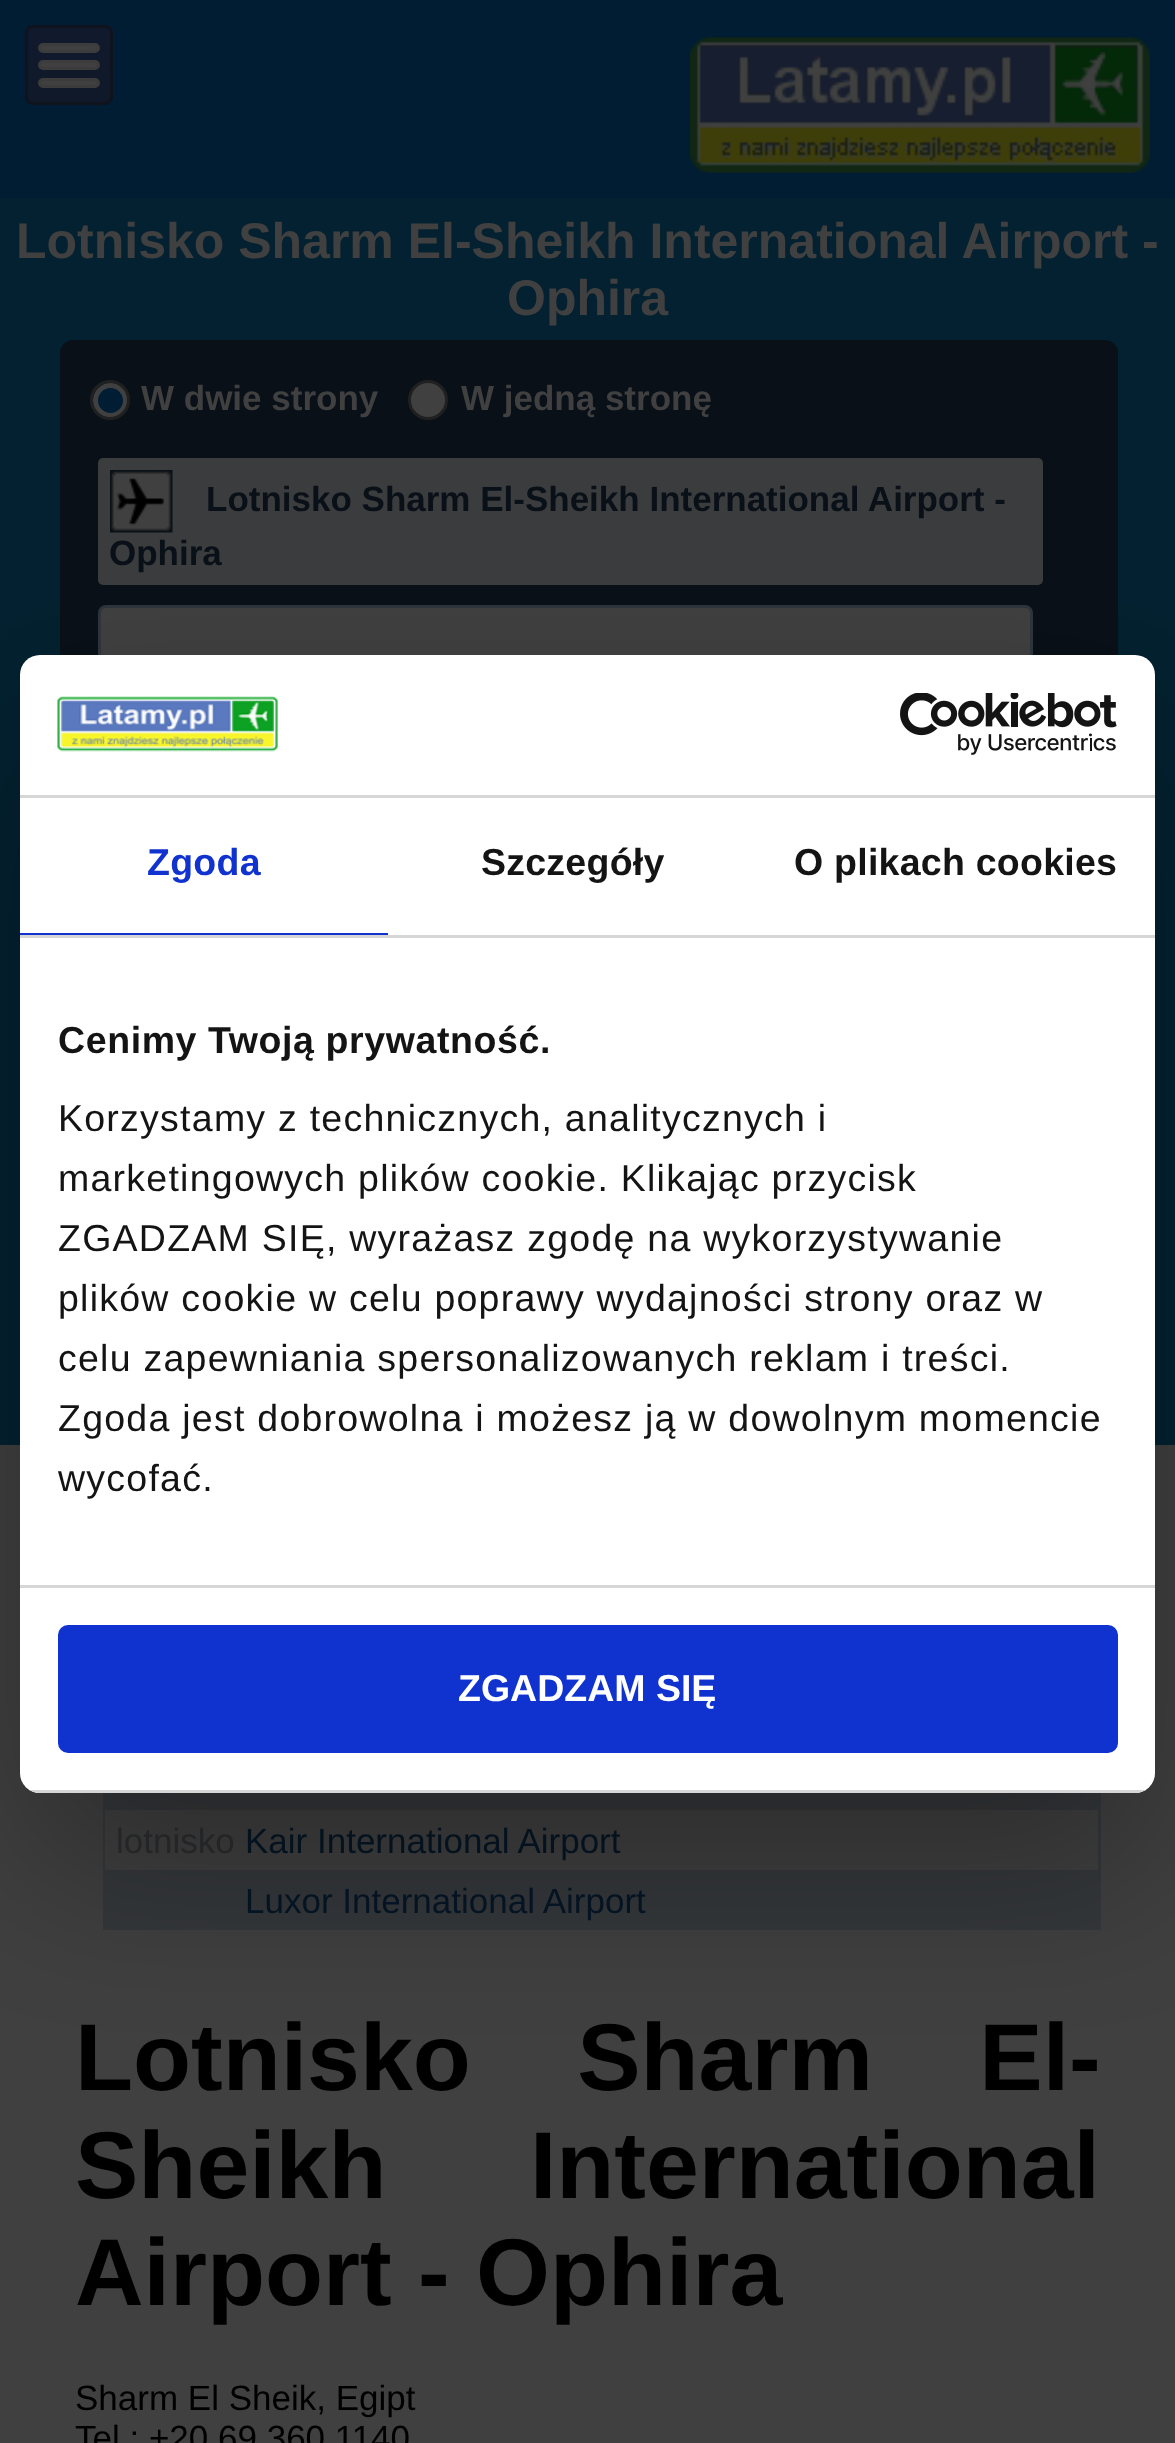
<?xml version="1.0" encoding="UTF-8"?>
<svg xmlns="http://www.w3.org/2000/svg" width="1175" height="2443">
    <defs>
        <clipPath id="clip1"><rect x="25" y="25" width="88" height="80" rx="8"/></clipPath>
        <linearGradient id="g1" gradientUnits="userSpaceOnUse" x1="69" y1="27" x2="69" y2="103"><stop offset="0" stop-color="#111A2D"/><stop offset="1" stop-color="#101929"/></linearGradient>
        <filter id="blur1" x="-50%" y="-200%" width="200%" height="500%"><feGaussianBlur stdDeviation="85"/></filter>
        <clipPath id="clip2"><rect x="20" y="655" width="1135" height="1138" rx="20"/></clipPath>
    </defs>
    <rect width="100%" height="100%" fill="#404040"/>
    <rect x="0" y="0" width="1175" height="198" fill="#001D33"/>
    <g clip-path="url(#clip1)">
        <rect x="25" y="28" width="88" height="75" fill="url(#g1)"/>
    </g>
    <rect x="26.5" y="26.5" width="85" height="77" rx="6.5" fill="none" stroke="#0E131E" stroke-width="3"/>
    <rect x="39.5" y="44.5" width="59" height="7" rx="3.5" fill="#404040" stroke="#3C3C3C" stroke-width="3"/>
    <rect x="39.5" y="61.5" width="59" height="7" rx="3.5" fill="#404040" stroke="#3C3C3C" stroke-width="3"/>
    <rect x="39.5" y="79.5" width="59" height="7" rx="3.5" fill="#404040" stroke="#3C3C3C" stroke-width="3"/>
    <image x="690" y="37" width="460" height="136" href="img_01.png"/>
    <rect x="0" y="198" width="1175" height="1247" fill="#032130"/>
    <text x="16" y="258" font-family="Liberation Sans" font-size="50" font-weight="700" fill="#404040">Lotnisko Sharm El-Sheikh International Airport -</text>
    <text x="507" y="315" font-family="Liberation Sans" font-size="50" font-weight="700" fill="#404040">Ophira</text>
    <rect x="60" y="340" width="1058" height="1068" rx="13" fill="#091018"/>
    <circle cx="110" cy="400" r="20" fill="#001D33"/>
    <circle cx="110.5" cy="400.5" r="15" fill="none" stroke="#404040" stroke-width="5"/>
    <circle cx="110" cy="400" r="18.5" fill="none" stroke="#202020" stroke-width="3"/>
    <text x="141" y="410" font-family="Liberation Sans" font-size="35" font-weight="700" fill="#404040">W dwie strony</text>
    <circle cx="428" cy="400" r="18.5" fill="#404040" stroke="#202020" stroke-width="3"/>
    <text x="461" y="410" font-family="Liberation Sans" font-size="35" font-weight="700" fill="#404040">W jedną stronę</text>
    <rect x="98" y="458" width="945" height="127" rx="5" fill="#3B3C3D"/>
    <image x="110" y="470" width="63" height="63" href="img_02.png"/>
    <text x="206" y="511" font-family="Liberation Sans" font-size="35" font-weight="700" fill="#091018">Lotnisko Sharm El-Sheikh International Airport -</text>
    <text x="109" y="565" font-family="Liberation Sans" font-size="35" font-weight="700" fill="#091018">Ophira</text>
    <rect x="99.5" y="606.5" width="932" height="97" rx="6.5" fill="#404040" stroke="#2F353D" stroke-width="3"/>
    <rect x="1098" y="1793" width="3" height="137" fill="#35383B"/>
    <rect x="103" y="1793" width="2" height="137" fill="#35383B"/>
    <rect x="105" y="1793" width="993" height="17" fill="#35383B"/>
    <text x="116" y="1853" font-family="Liberation Sans" font-size="35" fill="#2C2D2F">lotnisko</text>
    <text x="245" y="1853" font-family="Liberation Sans" font-size="35" fill="#051626">Kair International Airport</text>
    <rect x="105" y="1870" width="993" height="60" fill="#35383B"/>
    <text x="245" y="1913" font-family="Liberation Sans" font-size="35" fill="#051626">Luxor International Airport</text>
    <text font-family="Liberation Sans" font-size="95" font-weight="700" fill="#000000">
        <tspan x="75" y="2090" word-spacing="80">Lotnisko Sharm El-</tspan>
        <tspan x="75" y="2198" word-spacing="117">Sheikh International</tspan>
        <tspan x="75" y="2305">Airport - Ophira</tspan>
    </text>
    <text font-family="Liberation Sans" font-size="35" fill="#000000">
        <tspan x="75" y="2410">Sharm El Sheik, Egipt</tspan>
        <tspan x="75" y="2450">Tel.: +20 69 360 1140</tspan>
    </text>
    <rect x="20" y="735" width="1135" height="1138" rx="20" fill="#000000" fill-opacity="0.3" filter="url(#blur1)"/>
    <rect x="20" y="655" width="1135" height="1138" rx="20" fill="#FFFFFF"/>
    <rect x="20" y="795" width="1135" height="3" fill="#D6D6D6"/>
    <image x="57" y="696" width="221" height="56" href="img_03.png"/>
    <image x="900" y="693" width="217" height="62" href="img_04.png"/>
    <rect x="20" y="935" width="1135" height="3" fill="#D6D6D6"/>
    <rect x="20" y="933" width="368" height="2" fill="#1032CF"/>
    <text x="147" y="875" font-family="Liberation Sans" font-size="37.5" font-weight="700" letter-spacing="0.25" fill="#1032CF">Zgoda</text>
    <text x="481" y="875" font-family="Liberation Sans" font-size="37.5" font-weight="700" letter-spacing="0.25" fill="#141414">Szczegóły</text>
    <text x="794" y="875" font-family="Liberation Sans" font-size="37.5" font-weight="700" letter-spacing="0.25" fill="#141414">O plikach cookies</text>
    <rect x="20" y="1585" width="1135" height="3" fill="#D6D6D6"/>
    <text x="58" y="1053" font-family="Liberation Sans" font-size="37.5" font-weight="700" letter-spacing="0.6" fill="#141414">Cenimy Twoją prywatność.</text>
    <text font-family="Liberation Sans" font-size="37.5" letter-spacing="1.25" fill="#141414">
        <tspan x="58" y="1131">Korzystamy z technicznych, analitycznych i</tspan>
        <tspan x="58" y="1191">marketingowych plików cookie. Klikając przycisk</tspan>
        <tspan x="58" y="1251">ZGADZAM SIĘ, wyrażasz zgodę na wykorzystywanie</tspan>
        <tspan x="58" y="1311">plików cookie w celu poprawy wydajności strony oraz w</tspan>
        <tspan x="58" y="1371">celu zapewniania spersonalizowanych reklam i treści.</tspan>
        <tspan x="58" y="1431">Zgoda jest dobrowolna i możesz ją w dowolnym momencie</tspan>
        <tspan x="58" y="1491">wycofać.</tspan>
    </text>
    <g clip-path="url(#clip2)">
        <rect x="29" y="1790" width="1117" height="3" fill="#D6D6D6"/>
    </g>
    <rect x="60.5" y="1627.5" width="1055" height="123" rx="7.5" fill="#1032CF" stroke="#1032CF" stroke-width="5"/>
    <text x="458" y="1701" font-family="Liberation Sans" font-size="37.5" font-weight="700" fill="#FFFFFF">ZGADZAM SIĘ</text>
</svg>
